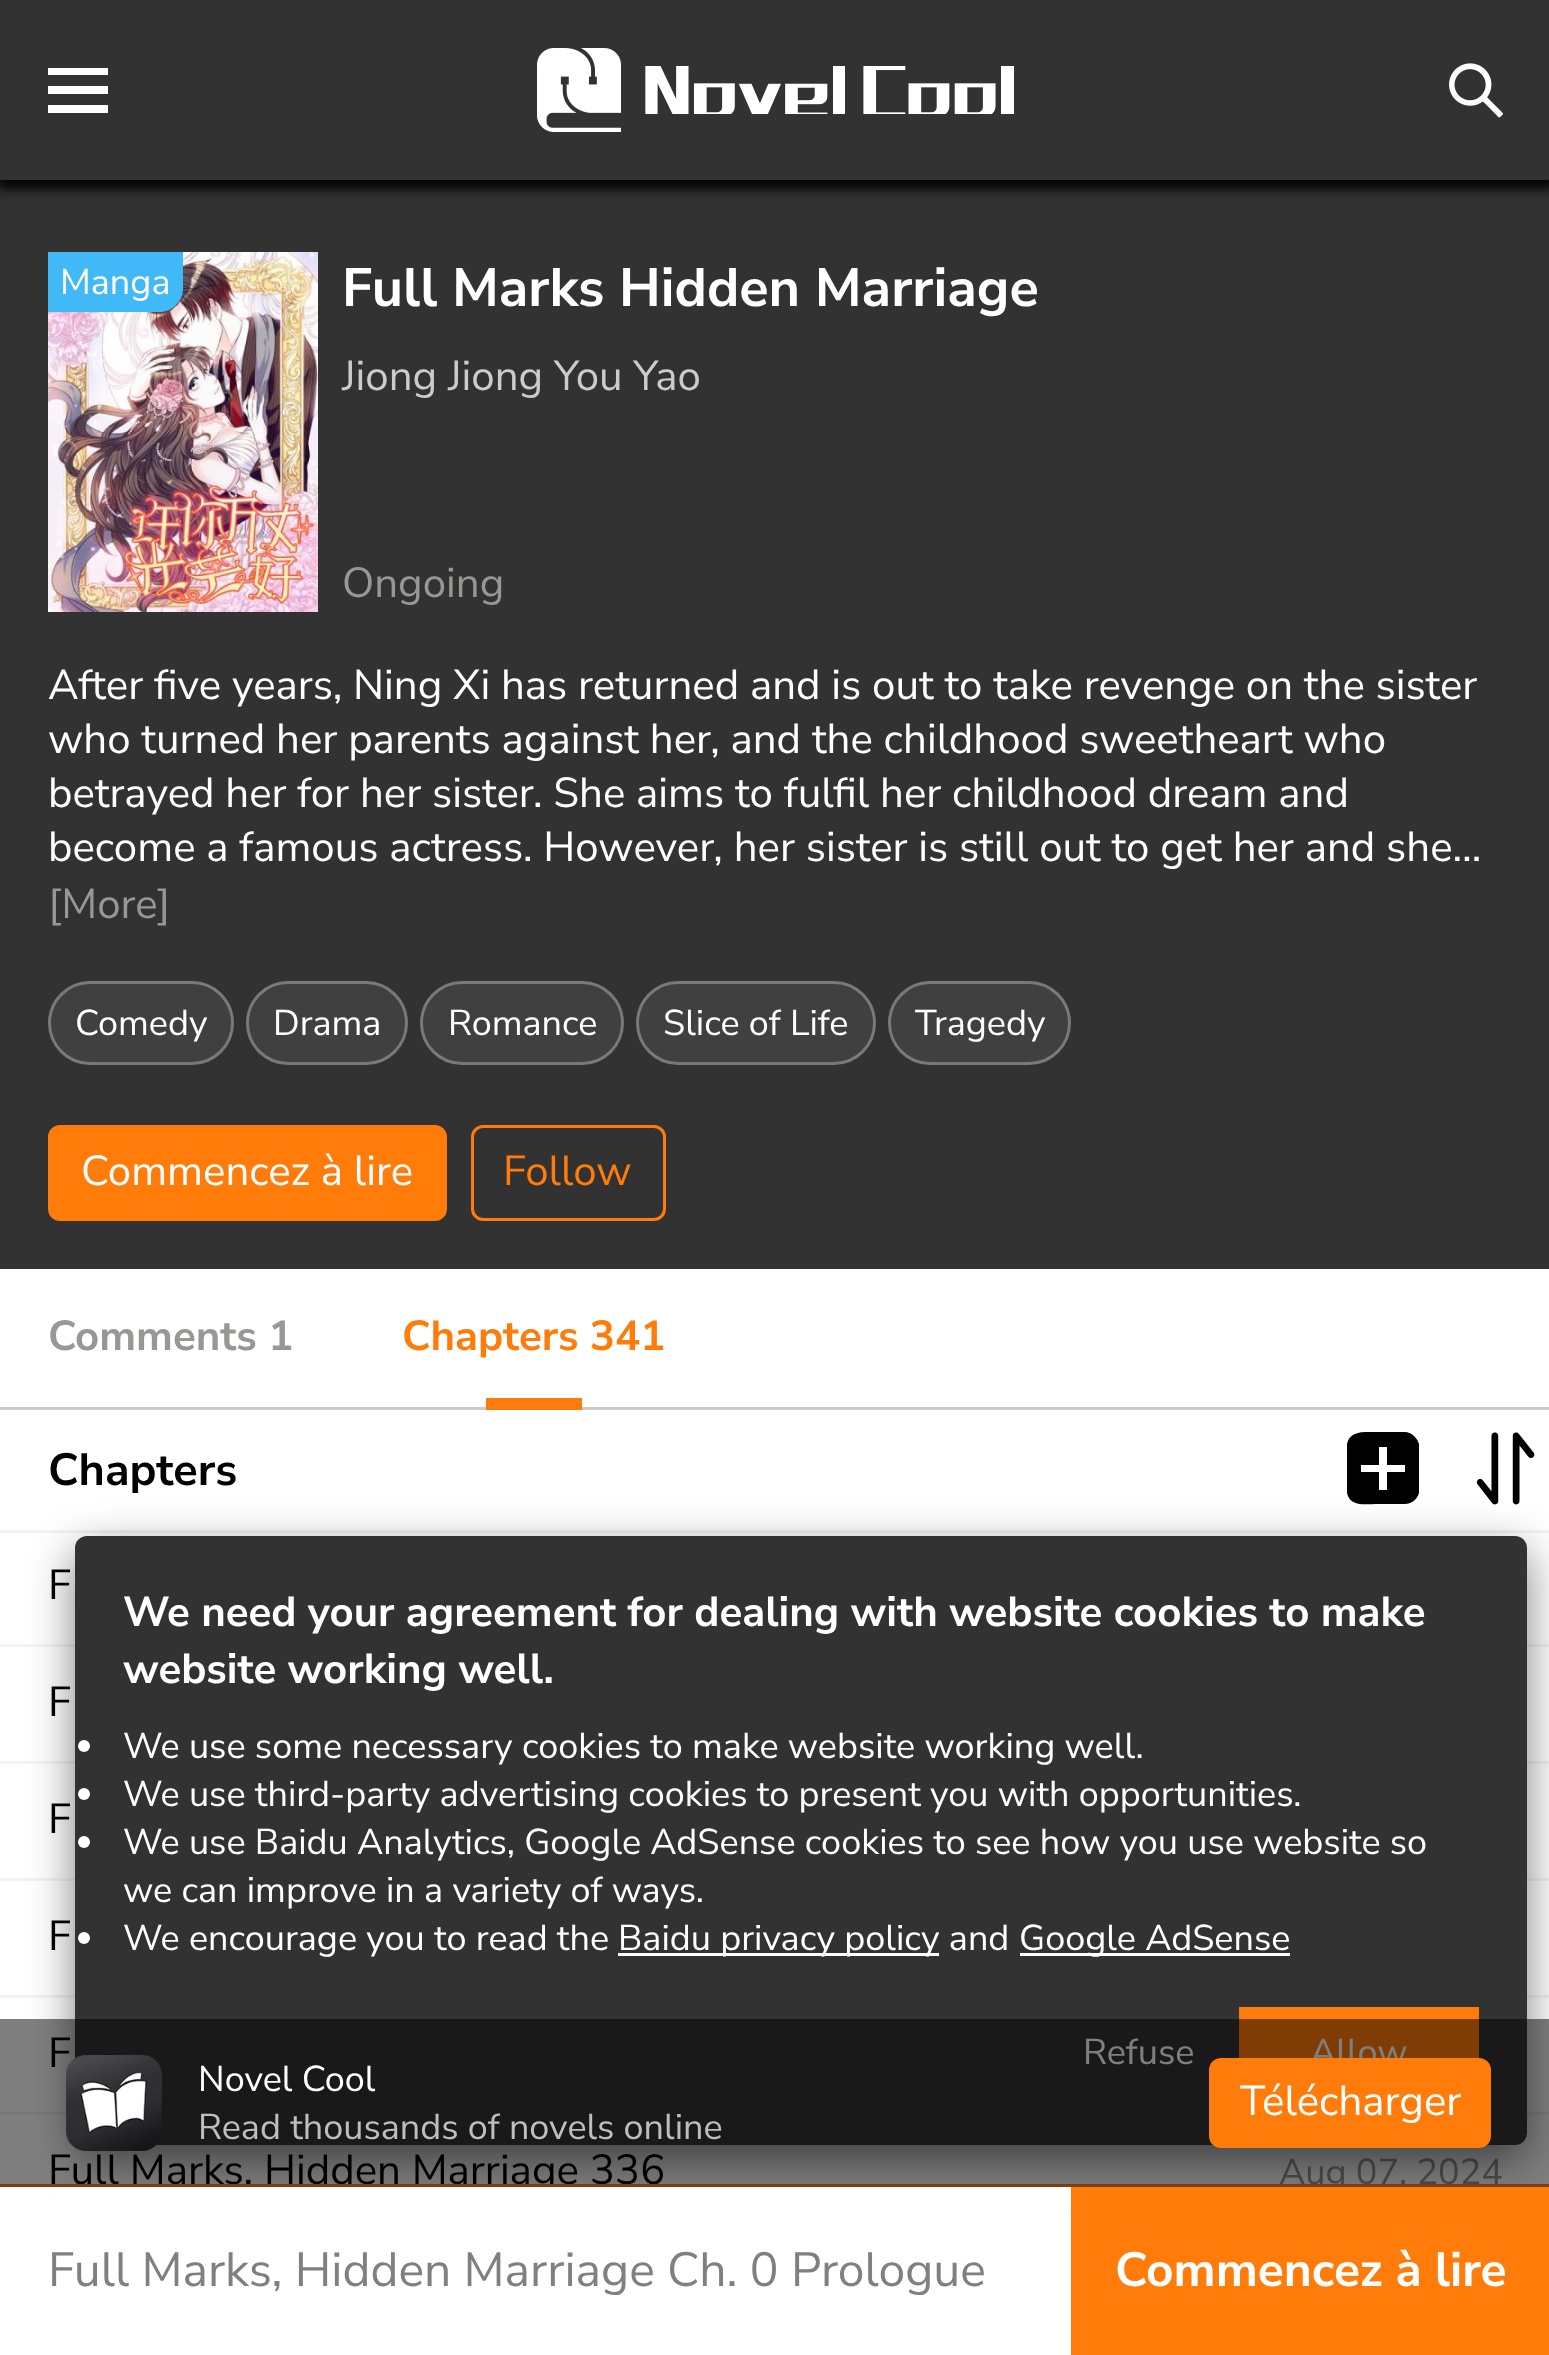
<?xml version="1.0" encoding="UTF-8"?>
<svg xmlns="http://www.w3.org/2000/svg" width="1549" height="2355">
    <defs>
        <filter id="blur1" x="-50%" y="-200%" width="200%" height="500%"><feGaussianBlur stdDeviation="6"/></filter>
        <filter id="blur2" x="-50%" y="-200%" width="200%" height="500%"><feGaussianBlur stdDeviation="22.5"/></filter>
    </defs>
    <rect width="100%" height="100%" fill="#FFFFFF"/>
    <rect x="0" y="180" width="1549" height="1089" fill="#323232"/>
    <rect x="-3" y="3" width="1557" height="186" fill="#000000" filter="url(#blur1)"/>
    <rect x="0" y="0" width="1549" height="180" fill="#323232"/>
    <path d="M 108 75 H 48 V 68 H 108 Z M 108 86 H 48 V 94 H 108 Z M 108 105 H 48 V 113 H 108 Z" fill="#FFFFFF"/>
    <image x="537" y="48" width="84" height="84" href="img_01.png"/>
    <image x="645" y="66" width="369" height="48" href="img_02.png"/>
    <image x="1449" y="63" width="54" height="55" href="img_03.png"/>
    <image x="48" y="252" width="270" height="360" href="img_04.png"/>
    <path d="M 48 252 H 183 V 288 C 183 301.5 172.5 312 159 312 H 48 Z" fill="#41B9F6"/>
    <text x="60" y="294" font-family="Nunito Sans" font-size="36" fill="#FFFFFF">Manga</text>
    <text x="342" y="306" font-family="Nunito Sans" font-size="54" font-weight="700" fill="#FFFFFF">Full Marks Hidden Marriage</text>
    <text x="342" y="390" font-family="Nunito Sans" font-size="42" fill="#CCCCCC">Jiong Jiong You Yao</text>
    <text x="342" y="597" font-family="Nunito Sans" font-size="42" fill="#999694">Ongoing</text>
    <text font-family="Nunito Sans" font-size="42" fill="#FFFFFF">
        <tspan x="48" y="699">After five years, Ning Xi has returned and is out to take revenge on the sister</tspan>
        <tspan x="48" y="753">who turned her parents against her, and the childhood sweetheart who</tspan>
        <tspan x="48" y="807">betrayed her for her sister. She aims to fulfil her childhood dream and</tspan>
        <tspan x="48" y="861">become a famous actress. However, her sister is still out to get her and she…</tspan>
    </text>
    <text x="48" y="918" font-family="Nunito Sans" font-size="42" fill="#999694">[More]</text>
    <rect x="48" y="981" width="186" height="84" rx="42" fill="#404040"/>
    <rect x="49.5" y="982.5" width="183" height="81" rx="40.5" fill="none" stroke="#FFFFFF" stroke-opacity="0.3" stroke-width="3"/>
    <text x="75" y="1035" font-family="Nunito Sans" font-size="36" fill="#FFFFFF">Comedy</text>
    <rect x="246" y="981" width="162" height="84" rx="42" fill="#404040"/>
    <rect x="247.5" y="982.5" width="159" height="81" rx="40.5" fill="none" stroke="#FFFFFF" stroke-opacity="0.3" stroke-width="3"/>
    <text x="273" y="1035" font-family="Nunito Sans" font-size="36" fill="#FFFFFF">Drama</text>
    <rect x="420" y="981" width="204" height="84" rx="42" fill="#404040"/>
    <rect x="421.5" y="982.5" width="201" height="81" rx="40.5" fill="none" stroke="#FFFFFF" stroke-opacity="0.3" stroke-width="3"/>
    <text x="448" y="1035" font-family="Nunito Sans" font-size="36" fill="#FFFFFF">Romance</text>
    <rect x="636" y="981" width="240" height="84" rx="42" fill="#404040"/>
    <rect x="637.5" y="982.5" width="237" height="81" rx="40.5" fill="none" stroke="#FFFFFF" stroke-opacity="0.3" stroke-width="3"/>
    <text x="663" y="1035" font-family="Nunito Sans" font-size="36" fill="#FFFFFF">Slice of Life</text>
    <rect x="888" y="981" width="183" height="84" rx="42" fill="#404040"/>
    <rect x="889.5" y="982.5" width="180" height="81" rx="40.5" fill="none" stroke="#FFFFFF" stroke-opacity="0.3" stroke-width="3"/>
    <text x="915" y="1035" font-family="Nunito Sans" font-size="36" fill="#FFFFFF">Tragedy</text>
    <rect x="49.5" y="1126.5" width="396" height="93" rx="10.5" fill="#FF7B0A" stroke="#FF7B0A" stroke-width="3"/>
    <text x="81" y="1185" font-family="Nunito Sans" font-size="42" fill="#FFFFFF">Commencez à lire</text>
    <rect x="472.5" y="1126.5" width="192" height="93" rx="10.5" fill="none" stroke="#FF7B0A" stroke-width="3"/>
    <text x="503" y="1185" font-family="Nunito Sans" font-size="42" fill="#FF7B0A">Follow</text>
    <rect x="0" y="1407" width="1549" height="3" fill="#CECAC8"/>
    <text x="48" y="1350" font-family="Nunito Sans" font-size="42" font-weight="700" fill="#999694">Comments 1</text>
    <text x="402" y="1350" font-family="Nunito Sans" font-size="42" font-weight="700" fill="#FF7B0A">Chapters 341</text>
    <rect x="486" y="1398" width="96" height="12" fill="#FF7B0A"/>
    <rect x="0" y="1530" width="1549" height="3" fill="#F3F3F3"/>
    <text x="48" y="1485" font-family="Nunito Sans" font-size="45" font-weight="700" fill="#000000">Chapters</text>
    <path d="M 1405 1432 H 1376 C 1365 1432 1350 1430 1347 1444 V 1493 C 1350 1507 1365 1504 1376 1504 H 1405 C 1411 1504 1417 1500 1419 1493 V 1444 C 1417 1437 1411 1432 1405 1432 Z M 1405 1472 H 1387 V 1490 H 1379 V 1472 H 1361 V 1465 H 1379 V 1447 H 1387 V 1465 H 1405 Z" fill="#000000"/>
    <image x="1476" y="1432" width="59" height="73" href="img_05.png"/>
    <rect x="0" y="1644" width="1549" height="3" fill="#F3F3F3"/>
    <text x="48" y="1599" font-family="Nunito Sans" font-size="42" fill="#000000">F</text>
    <rect x="0" y="1761" width="1549" height="3" fill="#F3F3F3"/>
    <text x="48" y="1716" font-family="Nunito Sans" font-size="42" fill="#000000">F</text>
    <rect x="0" y="1878" width="1549" height="3" fill="#F3F3F3"/>
    <text x="48" y="1833" font-family="Nunito Sans" font-size="42" fill="#000000">F</text>
    <rect x="0" y="1995" width="1549" height="3" fill="#F3F3F3"/>
    <text x="48" y="1950" font-family="Nunito Sans" font-size="42" fill="#000000">F</text>
    <rect x="0" y="2112" width="1549" height="3" fill="#F3F3F3"/>
    <text x="48" y="2067" font-family="Nunito Sans" font-size="42" fill="#000000">F</text>
    <text x="48" y="2184" font-family="Nunito Sans" font-size="42" fill="#000000">Full Marks, Hidden Marriage 336</text>
    <text x="1279" y="2184" font-family="Nunito Sans" font-size="36" fill="#999694">Aug 07, 2024</text>
    <rect x="75" y="1551" width="1452" height="609" rx="12" fill="#000000" fill-opacity="0.5" filter="url(#blur2)"/>
    <rect x="75" y="1536" width="1452" height="609" rx="12" fill="#323232"/>
    <text font-family="Nunito Sans" font-size="42" font-weight="700" fill="#FFFFFF">
        <tspan x="123" y="1626">We need your agreement for dealing with website cookies to make</tspan>
        <tspan x="123" y="1683">website working well.</tspan>
    </text>
    <circle cx="84" cy="1746" r="6" fill="#FFFFFF"/>
    <text x="123" y="1758" font-family="Nunito Sans" font-size="36" fill="#FFFFFF">We use some necessary cookies to make website working well.</text>
    <circle cx="84" cy="1794" r="6" fill="#FFFFFF"/>
    <text x="123" y="1806" font-family="Nunito Sans" font-size="36" fill="#FFFFFF">We use third-party advertising cookies to present you with opportunities.</text>
    <circle cx="84" cy="1842" r="6" fill="#FFFFFF"/>
    <text font-family="Nunito Sans" font-size="36" fill="#FFFFFF">
        <tspan x="123" y="1854">We use Baidu Analytics, Google AdSense cookies to see how you use website so</tspan>
        <tspan x="123" y="1902">we can improve in a variety of ways.</tspan>
    </text>
    <circle cx="84" cy="1938" r="6" fill="#FFFFFF"/>
    <text x="123" y="1950" font-family="Nunito Sans" font-size="36" fill="#FFFFFF">We encourage you to read the</text>
    <rect x="618" y="1953" width="321" height="3" fill="#FFFFFF"/>
    <text x="618" y="1950" font-family="Nunito Sans" font-size="36" fill="#FFFFFF">Baidu privacy policy and</text>
    <rect x="1020" y="1953" width="270" height="3" fill="#FFFFFF"/>
    <text x="1019" y="1950" font-family="Nunito Sans" font-size="36" fill="#FFFFFF">Google AdSense</text>
    <text x="1083" y="2064" font-family="Nunito Sans" font-size="36" fill="#FFFFFF">Refuse</text>
    <rect x="1239" y="2007" width="240" height="51" fill="#FF7B0A"/>
    <text x="1310" y="2064" font-family="Nunito Sans" font-size="36" fill="#FFFFFF">Allow</text>
    <rect x="0" y="2184" width="1549" height="3" fill="#FF7B0A"/>
    <rect x="0" y="2019" width="1549" height="168" fill="#000000" fill-opacity="0.5"/>
    <image x="66" y="2055" width="96" height="96" href="img_06.png"/>
    <text x="198" y="2091" font-family="Nunito Sans" font-size="36" fill="#FFFFFF">Novel Cool</text>
    <text x="198" y="2139" font-family="Nunito Sans" font-size="36" fill="#BEBEBE">Read thousands of novels online</text>
    <rect x="1209" y="2058" width="282" height="90" rx="12" fill="#FF7B0A"/>
    <text x="1240" y="2115" font-family="Nunito Sans" font-size="42" fill="#FFFFFF">Télécharger</text>
    <rect x="56" y="2187" width="1015" height="19" fill="#FFFFFF"/>
    <text x="48" y="2286" font-family="Nunito Sans" font-size="48" fill="#808080">Full Marks, Hidden Marriage Ch. 0 Prologue</text>
    <rect x="1071" y="2187" width="478" height="168" fill="#FF7B0A"/>
    <text x="1115" y="2286" font-family="Nunito Sans" font-size="48" font-weight="700" fill="#FFFFFF">Commencez à lire</text>
</svg>
